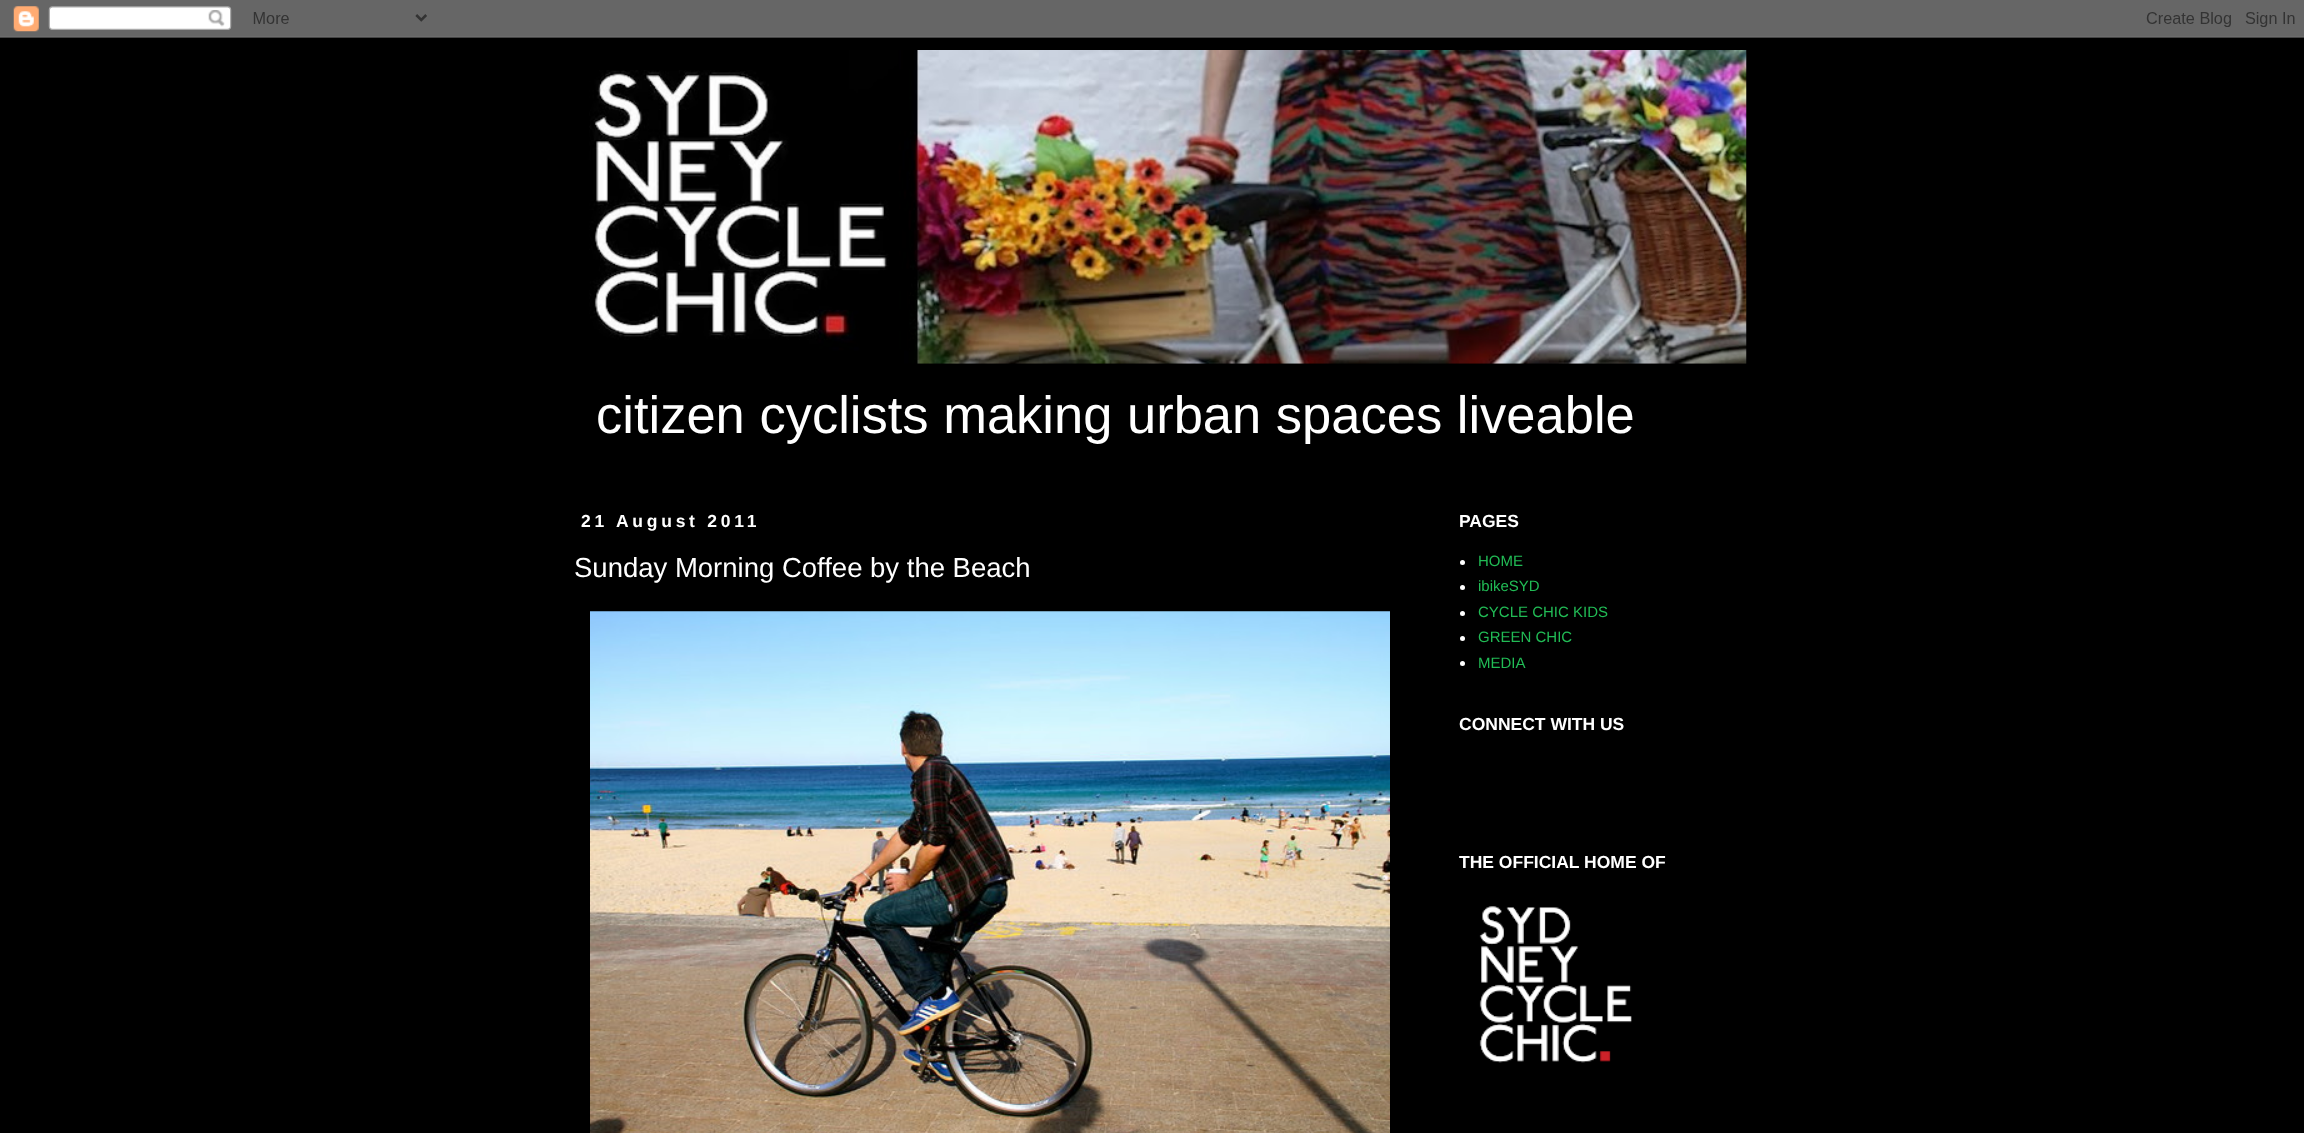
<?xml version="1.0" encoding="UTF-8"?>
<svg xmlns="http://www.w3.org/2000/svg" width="2304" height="1133">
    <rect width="100%" height="100%" fill="#000000"/>
    <image x="0" y="0" width="2304" height="38" href="img_01.png"/>
    <image x="589" y="50" width="1158" height="314" href="img_02.png"/>
    <text x="596" y="433" font-family="Liberation Sans" font-size="52.5" fill="#FFFFFF">citizen cyclists making urban spaces liveable</text>
    <text x="581" y="527" font-family="Liberation Sans" font-size="17.5" font-weight="700" letter-spacing="3.75" fill="#FFFFFF">21 August 2011</text>
    <text x="574" y="577" font-family="Liberation Sans" font-size="27.5" fill="#FFFFFF">Sunday Morning Coffee by the Beach</text>
    <image x="590" y="611" width="800" height="522" href="img_03.png"/>
    <text x="1459" y="527" font-family="Liberation Sans" font-size="17.5" font-weight="700" fill="#FFFFFF">PAGES</text>
    <circle cx="1462.5" cy="562.5" r="2.5" fill="#FFFFFF"/>
    <text x="1478" y="566" font-family="Liberation Sans" font-size="15" fill="#21BB55">HOME</text>
    <circle cx="1462.5" cy="587.5" r="2.5" fill="#FFFFFF"/>
    <text x="1478" y="591" font-family="Liberation Sans" font-size="15" fill="#21BB55">ibikeSYD</text>
    <circle cx="1462.5" cy="613.5" r="2.5" fill="#FFFFFF"/>
    <text x="1478" y="617" font-family="Liberation Sans" font-size="15" fill="#21BB55">CYCLE CHIC KIDS</text>
    <circle cx="1462.5" cy="638.5" r="2.5" fill="#FFFFFF"/>
    <text x="1478" y="642" font-family="Liberation Sans" font-size="15" fill="#21BB55">GREEN CHIC</text>
    <circle cx="1462.5" cy="663.5" r="2.5" fill="#FFFFFF"/>
    <text x="1478" y="668" font-family="Liberation Sans" font-size="15" fill="#21BB55">MEDIA</text>
    <text x="1459" y="730" font-family="Liberation Sans" font-size="17.5" font-weight="700" fill="#FFFFFF">CONNECT WITH US</text>
    <text x="1459" y="868" font-family="Liberation Sans" font-size="17.5" font-weight="700" fill="#FFFFFF">THE OFFICIAL HOME OF</text>
    <image x="1479" y="906" width="153" height="157" href="img_04.png"/>
</svg>
